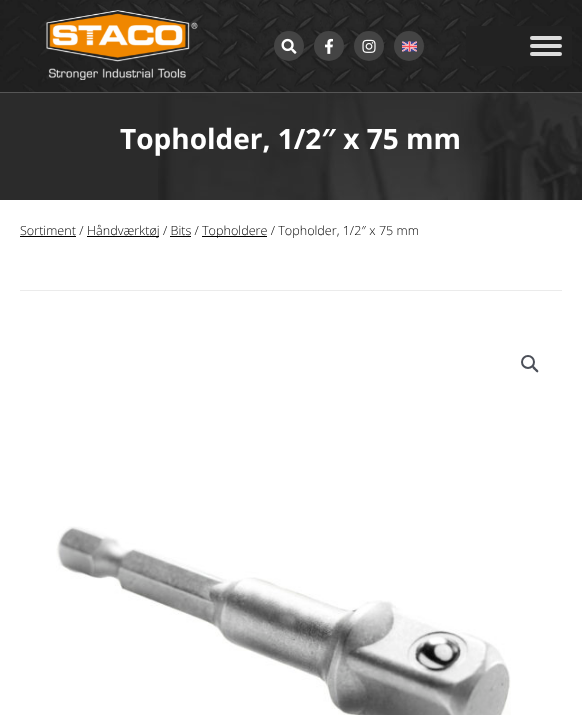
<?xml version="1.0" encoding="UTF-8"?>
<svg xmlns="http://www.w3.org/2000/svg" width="582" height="715">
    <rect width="100%" height="100%" fill="#2B2B2B"/>
    <image x="0" y="0" width="582" height="92" href="img_01.png"/>
    <rect x="0" y="92" width="582" height="1" fill="#565656"/>
    <image x="46" y="10" width="152" height="70" href="img_02.png"/>
    <circle cx="289" cy="46" r="15" fill="#444444"/>
    <image x="281" y="38" width="16" height="16" href="img_03.png"/>
    <circle cx="329" cy="46" r="15" fill="#444444"/>
    <image x="325" y="38" width="8" height="16" href="img_04.png"/>
    <circle cx="369" cy="46" r="15" fill="#444444"/>
    <image x="362" y="39" width="14" height="14" href="img_05.png"/>
    <circle cx="409" cy="46" r="15" fill="#444444"/>
    <image x="402" y="41" width="15" height="11" href="img_06.png"/>
    <rect x="466" y="26" width="106" height="40" rx="2" fill="#222222"/>
    <rect x="530" y="36" width="32" height="4" rx="2" fill="#DDDDDD"/>
    <rect x="530" y="44" width="32" height="4" rx="2" fill="#DDDDDD"/>
    <rect x="530" y="52" width="32" height="4" rx="2" fill="#DDDDDD"/>
    <image x="158" y="93" width="424" height="107" href="img_07.png"/>
    <text x="120" y="149" font-family="Open Sans" font-size="28" font-weight="700" fill="#FFFFFF">Topholder, 1/2″ x 75 mm</text>
    <rect x="0" y="200" width="582" height="515" fill="#FFFFFF"/>
    <text x="20" y="235" font-family="Open Sans" font-size="12.6" font-weight="300" fill="#000000">Sortiment /</text>
    <rect x="20" y="236" width="56" height="1" fill="#000000"/>
    <rect x="87" y="236" width="72" height="1" fill="#000000"/>
    <text x="87" y="235" font-family="Open Sans" font-size="12.6" font-weight="300" fill="#000000">Håndværktøj / Bits /</text>
    <rect x="202" y="236" width="65" height="1" fill="#000000"/>
    <text x="202" y="235" font-family="Open Sans" font-size="12.6" font-weight="300" fill="#000000">Topholdere / Topholder, 1/2″ x 75 mm</text>
    <rect x="170" y="236" width="21" height="1" fill="#000000"/>
    <rect x="20" y="290" width="542" height="1" fill="#EBEBEB"/>
    <circle cx="528" cy="362" r="6" fill="none" stroke="#4B4F58" stroke-width="2"/>
    <path d="M 532.5 366.5 C 533.5 365 535.5 368 536 368.5 C 536.5 369 539.5 371 538 372 C 537 373.5 535 370.5 534.5 370 C 534 369.5 531.5 367.5 532.5 366.5 Z" fill="#4B4F58"/>
    <image x="56" y="526" width="455" height="189" href="img_08.png"/>
</svg>
